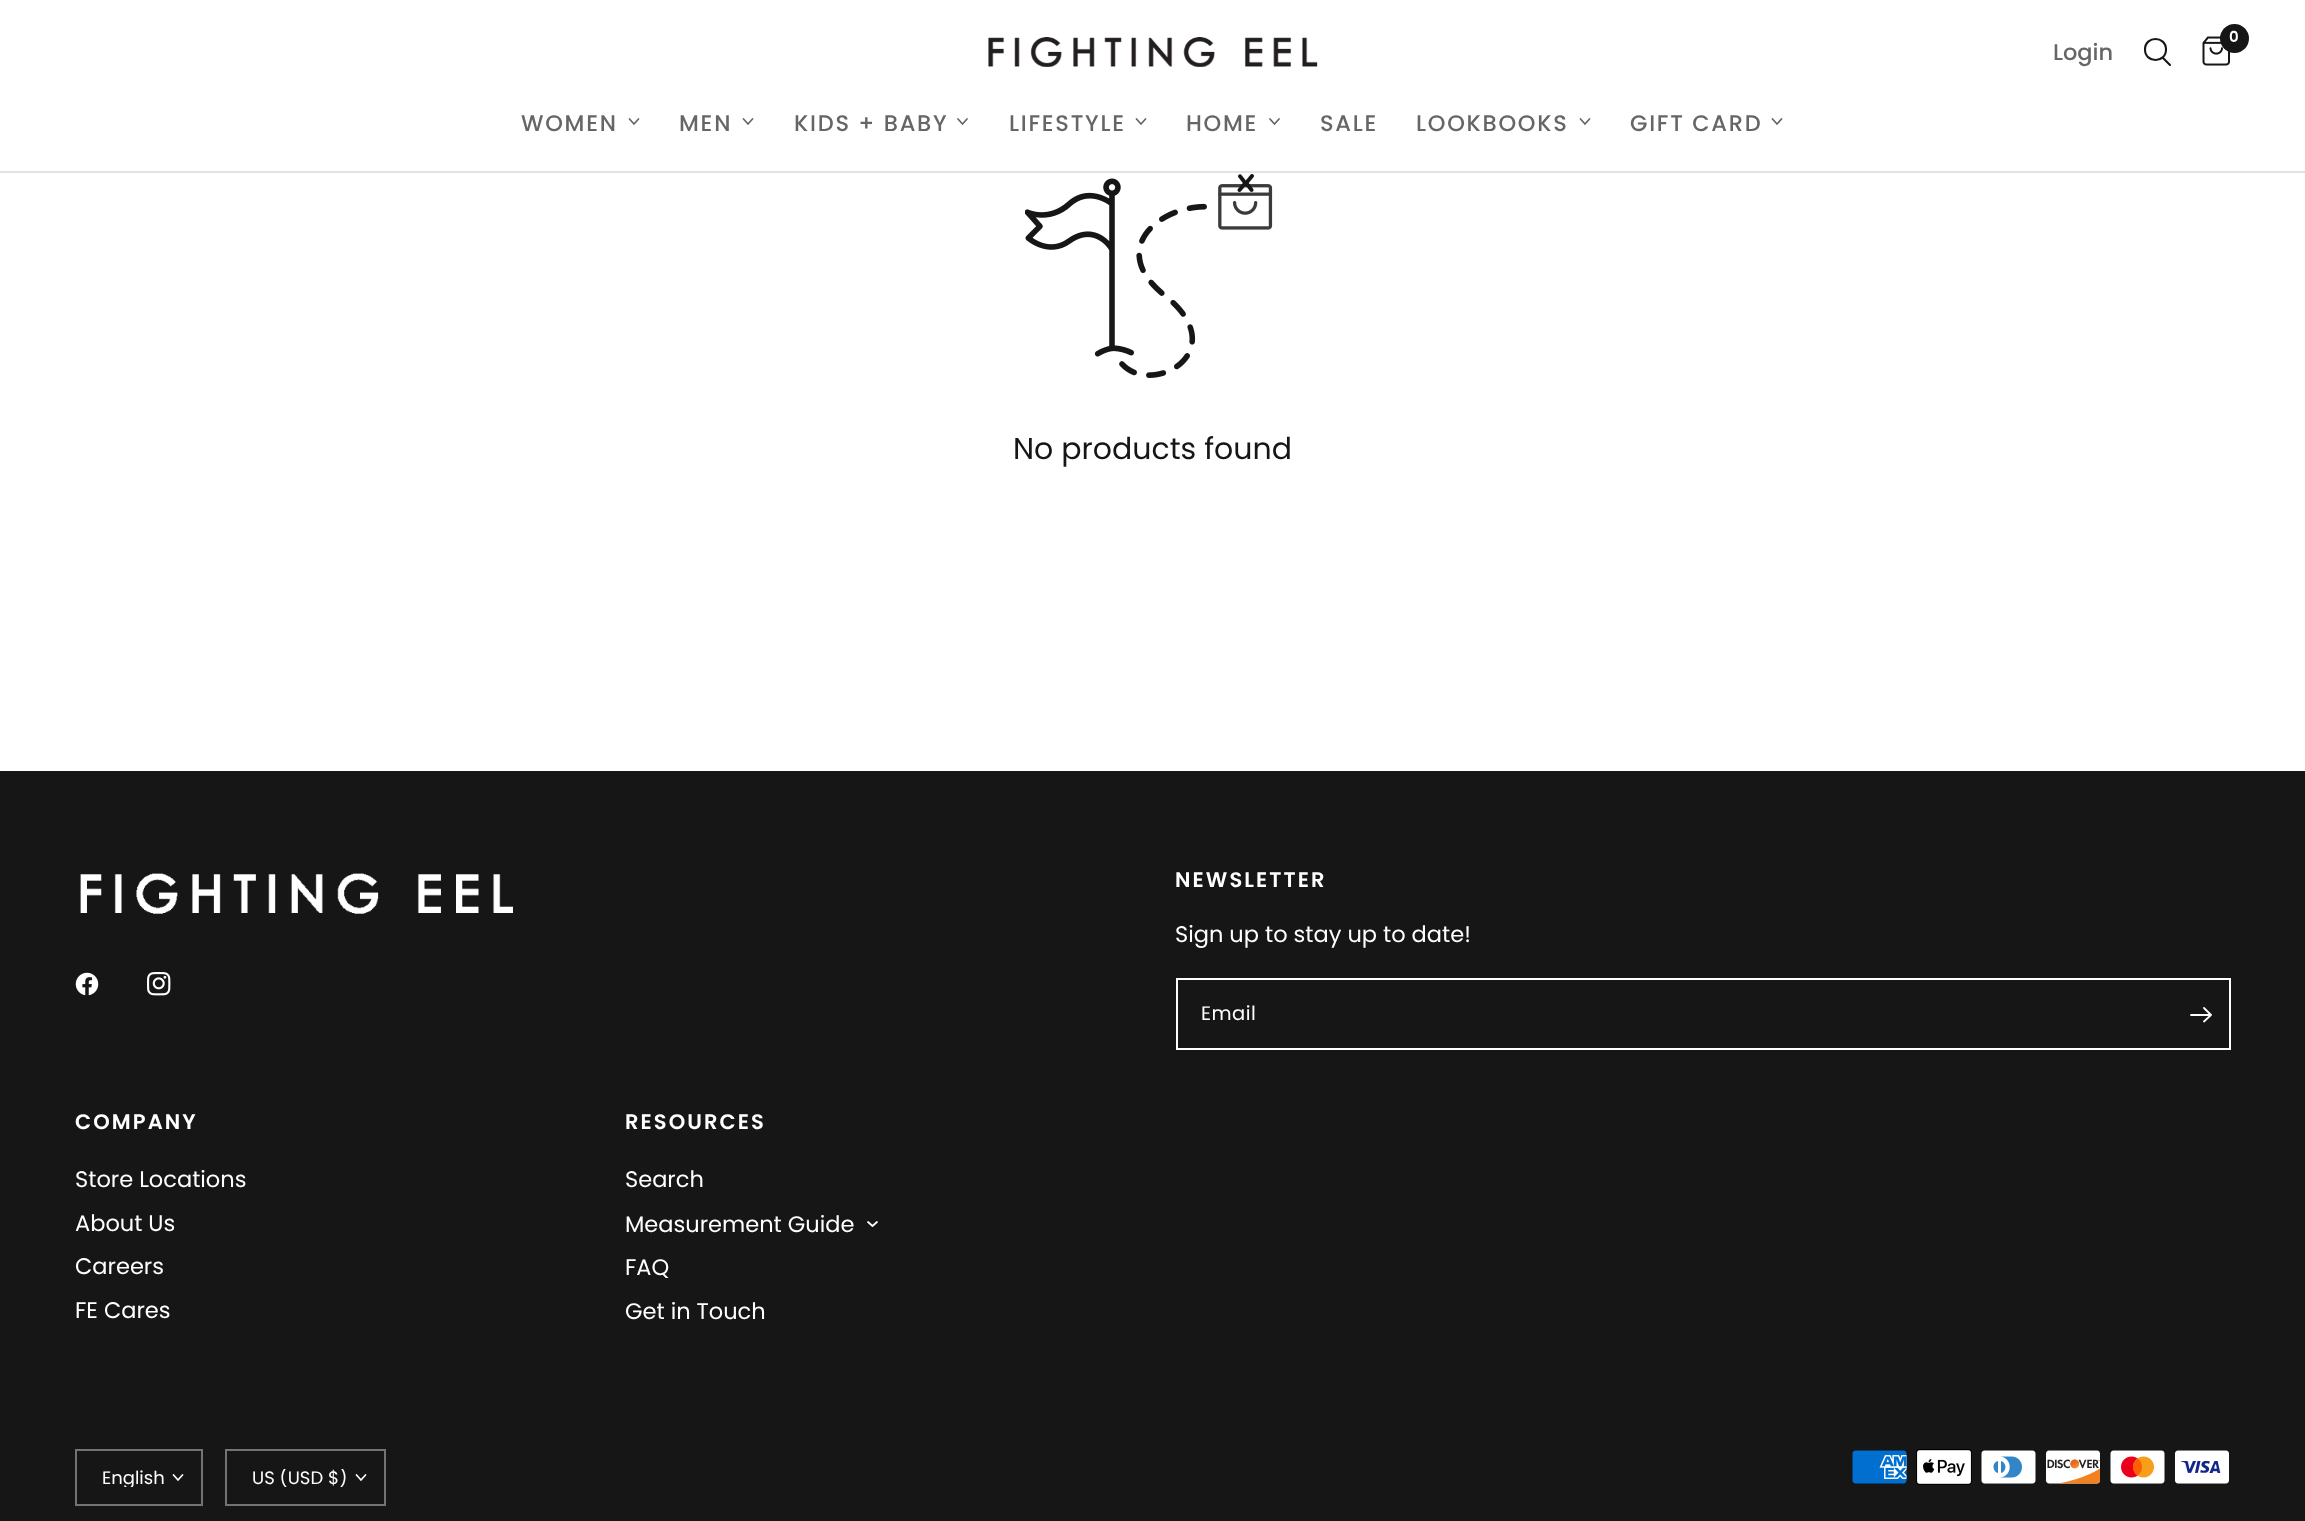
<?xml version="1.0" encoding="UTF-8"?>
<svg xmlns="http://www.w3.org/2000/svg" width="2305" height="1521">
    <defs>
        <clipPath id="clip1"><rect x="102" y="1469" width="63" height="18"/></clipPath>
        <clipPath id="clip2"><rect x="252" y="1469" width="96" height="18"/></clipPath>
    </defs>
    <rect width="100%" height="100%" fill="#FFFFFF"/>
    <rect x="0" y="171" width="2305" height="2" fill="#E2E2E2"/>
    <image x="988" y="37" width="330" height="30" href="img_01.png"/>
    <image x="2202" y="36" width="28" height="30" href="img_02.png"/>
    <circle cx="2234.5" cy="38.5" r="14.5" fill="#161616"/>
    <text x="2229" y="42" font-family="Poppins" font-size="15" font-weight="600" fill="#FFFFFF">0</text>
    <text x="2053" y="60" font-family="Poppins" font-size="22.5" font-weight="500" fill="#666666">Login</text>
    <path d="M 2163 58 L 2170 65 M 2166 49.5 C 2166 63.5 2145 63.5 2145 49.5 C 2145 35.5 2166 35.5 2166 49.5 Z" fill="none" stroke="#161616" stroke-width="2.1" stroke-linecap="round" stroke-linejoin="round"/>
    <text x="521" y="131" font-family="Poppins" font-size="22.5" font-weight="500" letter-spacing="1.75" fill="#666666">WOMEN</text>
    <path d="M 638.5 119 L 634 124 L 629.5 119" fill="none" stroke="#666666" stroke-width="1.7" stroke-linecap="round" stroke-linejoin="round"/>
    <text x="679" y="131" font-family="Poppins" font-size="22.5" font-weight="500" letter-spacing="1.75" fill="#666666">MEN</text>
    <path d="M 752.5 119 L 748 124 L 743.5 119" fill="none" stroke="#666666" stroke-width="1.7" stroke-linecap="round" stroke-linejoin="round"/>
    <text x="794" y="131" font-family="Poppins" font-size="22.5" font-weight="500" letter-spacing="1.75" fill="#666666">KIDS + BABY</text>
    <path d="M 967 119 L 962.5 124 L 958 119" fill="none" stroke="#666666" stroke-width="1.7" stroke-linecap="round" stroke-linejoin="round"/>
    <text x="1009" y="131" font-family="Poppins" font-size="22.5" font-weight="500" letter-spacing="1.75" fill="#666666">LIFESTYLE</text>
    <path d="M 1145.5 119 L 1141 124 L 1136.5 119" fill="none" stroke="#666666" stroke-width="1.7" stroke-linecap="round" stroke-linejoin="round"/>
    <text x="1186" y="131" font-family="Poppins" font-size="22.5" font-weight="500" letter-spacing="1.75" fill="#666666">HOME</text>
    <path d="M 1279 119 L 1274.5 124 L 1270 119" fill="none" stroke="#666666" stroke-width="1.7" stroke-linecap="round" stroke-linejoin="round"/>
    <text x="1320" y="131" font-family="Poppins" font-size="22.5" font-weight="500" letter-spacing="1.75" fill="#666666">SALE</text>
    <text x="1416" y="131" font-family="Poppins" font-size="22.5" font-weight="500" letter-spacing="1.75" fill="#666666">LOOKBOOKS</text>
    <path d="M 1589.5 119 L 1585 124 L 1580.5 119" fill="none" stroke="#666666" stroke-width="1.7" stroke-linecap="round" stroke-linejoin="round"/>
    <text x="1630" y="131" font-family="Poppins" font-size="22.5" font-weight="500" letter-spacing="1.75" fill="#666666">GIFT CARD</text>
    <path d="M 1781.5 119 L 1777 124 L 1772.5 119" fill="none" stroke="#666666" stroke-width="1.7" stroke-linecap="round" stroke-linejoin="round"/>
    <image x="1025" y="174" width="248" height="204" href="img_03.png"/>
    <text x="1013" y="459" font-family="Poppins" font-size="30" fill="#161616">No products found</text>
    <rect x="0" y="771" width="2305" height="750" fill="#161616"/>
    <image x="80" y="873" width="433" height="41" href="img_04.png"/>
    <image x="75" y="972" width="24" height="24" href="img_05.png"/>
    <image x="147" y="972" width="24" height="24" href="img_06.png"/>
    <text x="1175" y="887" font-family="Poppins" font-size="21" font-weight="600" letter-spacing="2.1" fill="#FFFFFF">NEWSLETTER</text>
    <text x="1175" y="942" font-family="Poppins" font-size="22.5" fill="#FFFFFF">Sign up to stay up to date!</text>
    <rect x="1177" y="979" width="1053" height="70" fill="none" stroke="#FFFFFF" stroke-width="2"/>
    <text x="1201" y="1020" font-family="Poppins" font-size="19.5" letter-spacing="0.5" fill="#FFFFFF">Email</text>
    <path d="M 2191 1015 H 2209 M 2204 1008 L 2211 1015 L 2204 1021.5" fill="none" stroke="#FFFFFF" stroke-width="1.8" stroke-linecap="round" stroke-linejoin="round"/>
    <text x="75" y="1129" font-family="Poppins" font-size="21" font-weight="600" letter-spacing="2.1" fill="#FFFFFF">COMPANY</text>
    <text font-family="Poppins" font-size="22.5" fill="#FFFFFF">
        <tspan x="75" y="1187">Store Locations</tspan>
        <tspan x="75" y="1231">About Us</tspan>
        <tspan x="75" y="1274">Careers</tspan>
        <tspan x="75" y="1318">FE Cares</tspan>
    </text>
    <text x="625" y="1129" font-family="Poppins" font-size="21" font-weight="600" letter-spacing="2.1" fill="#FFFFFF">RESOURCES</text>
    <text x="625" y="1187" font-family="Poppins" font-size="22.5" fill="#FFFFFF">Search</text>
    <text x="625" y="1232" font-family="Poppins" font-size="22.5" fill="#FFFFFF">Measurement Guide</text>
    <path d="M 877 1222 L 872.5 1226 L 868 1222" fill="none" stroke="#FFFFFF" stroke-width="1.7" stroke-linecap="round" stroke-linejoin="round"/>
    <text font-family="Poppins" font-size="22.5" fill="#FFFFFF">
        <tspan x="625" y="1275">FAQ</tspan>
        <tspan x="625" y="1319">Get in Touch</tspan>
    </text>
    <rect x="76" y="1450" width="126" height="55" fill="none" stroke="#737373" stroke-width="2"/>
    <g clip-path="url(#clip1)">
        <text x="102" y="1484" font-family="Poppins" font-size="18" fill="#FFFFFF">English</text>
    </g>
    <path d="M 182.5 1475 L 178 1480 L 173.5 1475" fill="none" stroke="#FFFFFF" stroke-width="1.7" stroke-linecap="round" stroke-linejoin="round"/>
    <rect x="226" y="1450" width="159" height="55" fill="none" stroke="#737373" stroke-width="2"/>
    <g clip-path="url(#clip2)">
        <text x="252" y="1484" font-family="Poppins" font-size="18" fill="#FFFFFF">US (USD $)</text>
    </g>
    <path d="M 365.5 1475 L 361 1480 L 356.5 1475" fill="none" stroke="#FFFFFF" stroke-width="1.7" stroke-linecap="round" stroke-linejoin="round"/>
    <image x="1852" y="1450" width="55" height="34" href="img_07.png"/>
    <image x="1916" y="1449" width="56" height="36" href="img_08.png"/>
    <image x="1981" y="1450" width="55" height="34" href="img_09.png"/>
    <image x="2046" y="1450" width="55" height="34" href="img_10.png"/>
    <image x="2110" y="1450" width="55" height="34" href="img_11.png"/>
    <image x="2175" y="1450" width="54" height="34" href="img_12.png"/>
</svg>
